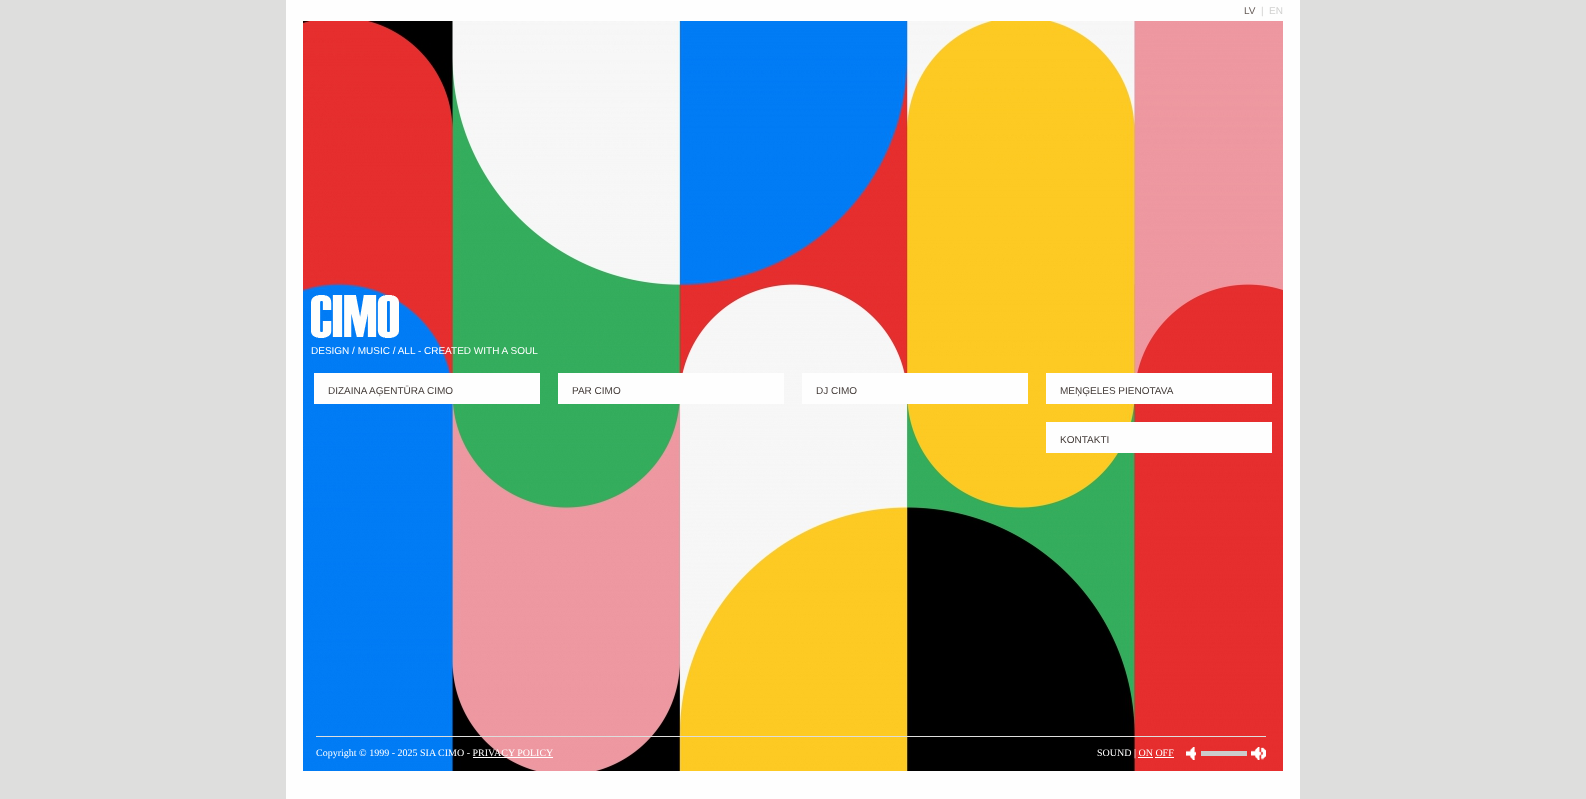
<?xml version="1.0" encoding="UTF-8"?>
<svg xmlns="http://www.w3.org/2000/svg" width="1586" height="799">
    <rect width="100%" height="100%" fill="#DEDEDD"/>
    <rect x="286" y="0" width="1014" height="799" fill="#FEFEFE"/>
    <text x="1244" y="14" font-family="Liberation Sans" font-size="10" fill="#655B57">LV</text>
    <text x="1261" y="14" font-family="Liberation Sans" font-size="10" fill="#D1D1D0">|</text>
    <text x="1269" y="14" font-family="Liberation Sans" font-size="10" fill="#D1D1D0">EN</text>
    <image x="303" y="21" width="980" height="750" href="img_01.png"/>
    <image x="311" y="295" width="88" height="43" href="img_02.png"/>
    <text x="311" y="354" font-family="Liberation Sans" font-size="10" fill="#FFFFFF">DESIGN / MUSIC / ALL - CREATED WITH A SOUL</text>
    <rect x="314" y="373" width="226" height="31" fill="#FEFEFE"/>
    <text x="328" y="394" font-family="Liberation Sans" font-size="10" fill="#423A37">DIZAINA AĢENTŪRA CIMO</text>
    <rect x="558" y="373" width="226" height="31" fill="#FEFEFE"/>
    <text x="572" y="394" font-family="Liberation Sans" font-size="10" fill="#423A37">PAR CIMO</text>
    <rect x="802" y="373" width="226" height="31" fill="#FEFEFE"/>
    <text x="816" y="394" font-family="Liberation Sans" font-size="10" fill="#423A37">DJ CIMO</text>
    <rect x="1046" y="373" width="226" height="31" fill="#FEFEFE"/>
    <text x="1060" y="394" font-family="Liberation Sans" font-size="10" fill="#423A37">MEŅĢELES PIENOTAVA</text>
    <rect x="1046" y="422" width="226" height="31" fill="#FEFEFE"/>
    <text x="1060" y="443" font-family="Liberation Sans" font-size="10" fill="#423A37">KONTAKTI</text>
    <rect x="316" y="736" width="950" height="1" fill="#DEDEDD"/>
    <text x="316" y="756" font-family="Liberation Serif" font-size="10" fill="#FFFFFF">Copyright © 1999 - 2025 SIA CIMO - PRIVACY POLICY</text>
    <rect x="473" y="757" width="80" height="1" fill="#FFFFFF"/>
    <text x="1097" y="756" font-family="Liberation Serif" font-size="10" fill="#FFFFFF">SOUND | ON OFF</text>
    <image x="1186" y="747" width="10" height="13" href="img_03.png"/>
    <rect x="1201" y="751" width="46" height="5" fill="#CCCCCC"/>
    <image x="1251" y="747" width="15" height="13" href="img_04.png"/>
    <rect x="1138" y="757" width="15" height="1" fill="#FFFFFF"/>
    <rect x="1155" y="757" width="19" height="1" fill="#FFFFFF"/>
</svg>
